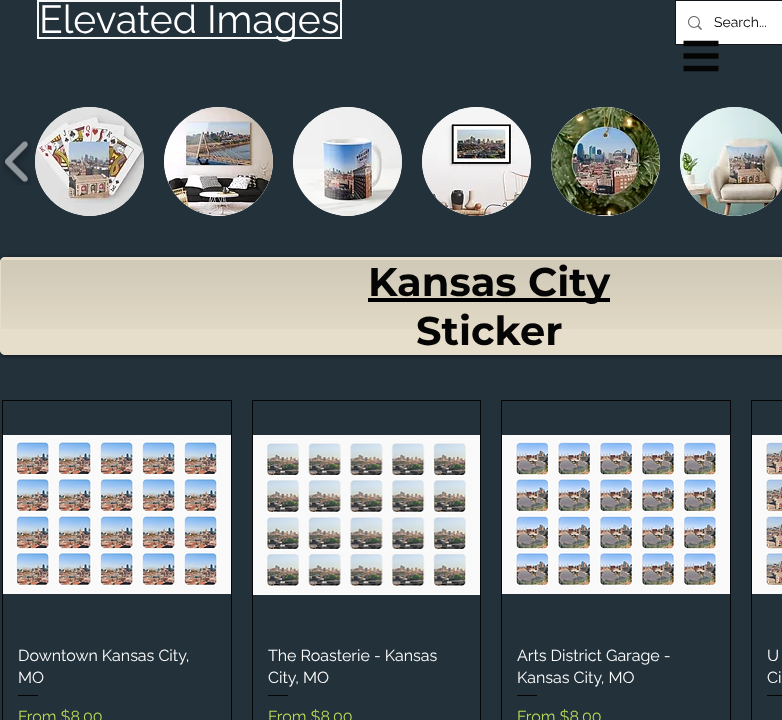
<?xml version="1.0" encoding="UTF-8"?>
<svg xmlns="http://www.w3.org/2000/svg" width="782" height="720">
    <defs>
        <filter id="blur1" x="-50%" y="-200%" width="200%" height="500%"><feGaussianBlur stdDeviation="2"/></filter>
    </defs>
    <rect width="100%" height="100%" fill="#23313B"/>
    <rect x="38" y="1" width="303" height="37" fill="none" stroke="#F6F7F7" stroke-width="2"/>
    <text x="39" y="33" font-family="Raleway" font-size="39" fill="#FFFFFF">Elevated Images</text>
    <rect x="675.5" y="0.5" width="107" height="44" fill="none" stroke="#11171B"/>
    <rect x="676" y="1" width="106" height="43" fill="#FFFFFF"/>
    <image x="688" y="16" width="14" height="14" href="img_01.png"/>
    <text x="714" y="27" font-family="Raleway" font-size="14" fill="#050505">Search...</text>
    <image x="683" y="40" width="36" height="32" href="img_02.png"/>
    <image x="3" y="140" width="28" height="45" href="img_03.png"/>
    <circle cx="89.5" cy="161.5" r="54.5" fill="#FFFFFF"/>
    <image x="35" y="107" width="109" height="109" href="img_04.png"/>
    <circle cx="218.5" cy="161.5" r="54.5" fill="#FFFFFF"/>
    <image x="164" y="107" width="109" height="109" href="img_05.png"/>
    <circle cx="347.5" cy="161.5" r="54.5" fill="#FFFFFF"/>
    <image x="293" y="107" width="109" height="109" href="img_06.png"/>
    <circle cx="476.5" cy="161.5" r="54.5" fill="#FFFFFF"/>
    <image x="422" y="107" width="109" height="109" href="img_07.png"/>
    <circle cx="605.5" cy="161.5" r="54.5" fill="#FFFFFF"/>
    <image x="551" y="107" width="109" height="109" href="img_08.png"/>
    <circle cx="734.5" cy="161.5" r="54.5" fill="#FFFFFF"/>
    <image x="680" y="107" width="102" height="109" href="img_09.png"/>
    <rect x="0" y="258" width="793" height="98" rx="5" fill="#000000" fill-opacity="0.6" filter="url(#blur1)"/>
    <rect x="0" y="257" width="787" height="98" rx="5" fill="#E6DECA"/>
    <image x="0" y="260" width="782" height="69" href="img_10.png"/>
    <rect x="0.5" y="257.5" width="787" height="97" rx="4.5" fill="none" stroke="#E6DECA"/>
    <rect x="368" y="298" width="242" height="4" fill="#000000"/>
    <text x="368" y="296" font-family="Montserrat" font-size="40" font-weight="700" fill="#050505">Kansas City</text>
    <text x="416" y="345" font-family="Montserrat" font-size="40" font-weight="700" fill="#050505">Sticker</text>
    <rect x="2.5" y="400.5" width="229" height="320" fill="none" stroke="#050505"/>
    <image x="3" y="435" width="228" height="159" href="img_11.png"/>
    <text font-family="Raleway" font-size="16" fill="#FFFFFF">
        <tspan x="18" y="661">Downtown Kansas City,</tspan>
        <tspan x="18" y="683">MO</tspan>
    </text>
    <rect x="18" y="695" width="20" height="1" fill="#050505"/>
    <text x="18" y="722" font-family="Raleway" font-size="16" fill="#BADA55">From $8.00</text>
    <rect x="252.5" y="400.5" width="228" height="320" fill="none" stroke="#050505"/>
    <image x="253" y="435" width="227" height="160" href="img_12.png"/>
    <text font-family="Raleway" font-size="16" fill="#FFFFFF">
        <tspan x="268" y="661">The Roasterie - Kansas</tspan>
        <tspan x="268" y="683">City, MO</tspan>
    </text>
    <rect x="268" y="695" width="20" height="1" fill="#050505"/>
    <text x="268" y="722" font-family="Raleway" font-size="16" fill="#BADA55">From $8.00</text>
    <rect x="501.5" y="400.5" width="229" height="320" fill="none" stroke="#050505"/>
    <image x="502" y="435" width="228" height="159" href="img_13.png"/>
    <text font-family="Raleway" font-size="16" fill="#FFFFFF">
        <tspan x="517" y="661">Arts District Garage -</tspan>
        <tspan x="517" y="683">Kansas City, MO</tspan>
    </text>
    <rect x="517" y="695" width="20" height="1" fill="#050505"/>
    <text x="517" y="722" font-family="Raleway" font-size="16" fill="#BADA55">From $8.00</text>
    <rect x="751.5" y="400.5" width="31" height="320" fill="none" stroke="#050505"/>
    <image x="752" y="435" width="30" height="159" href="img_14.png"/>
    <text font-family="Raleway" font-size="16" fill="#FFFFFF">
        <tspan x="767" y="661">U</tspan>
        <tspan x="767" y="683">Ci</tspan>
    </text>
    <rect x="767" y="695" width="15" height="1" fill="#050505"/>
</svg>
